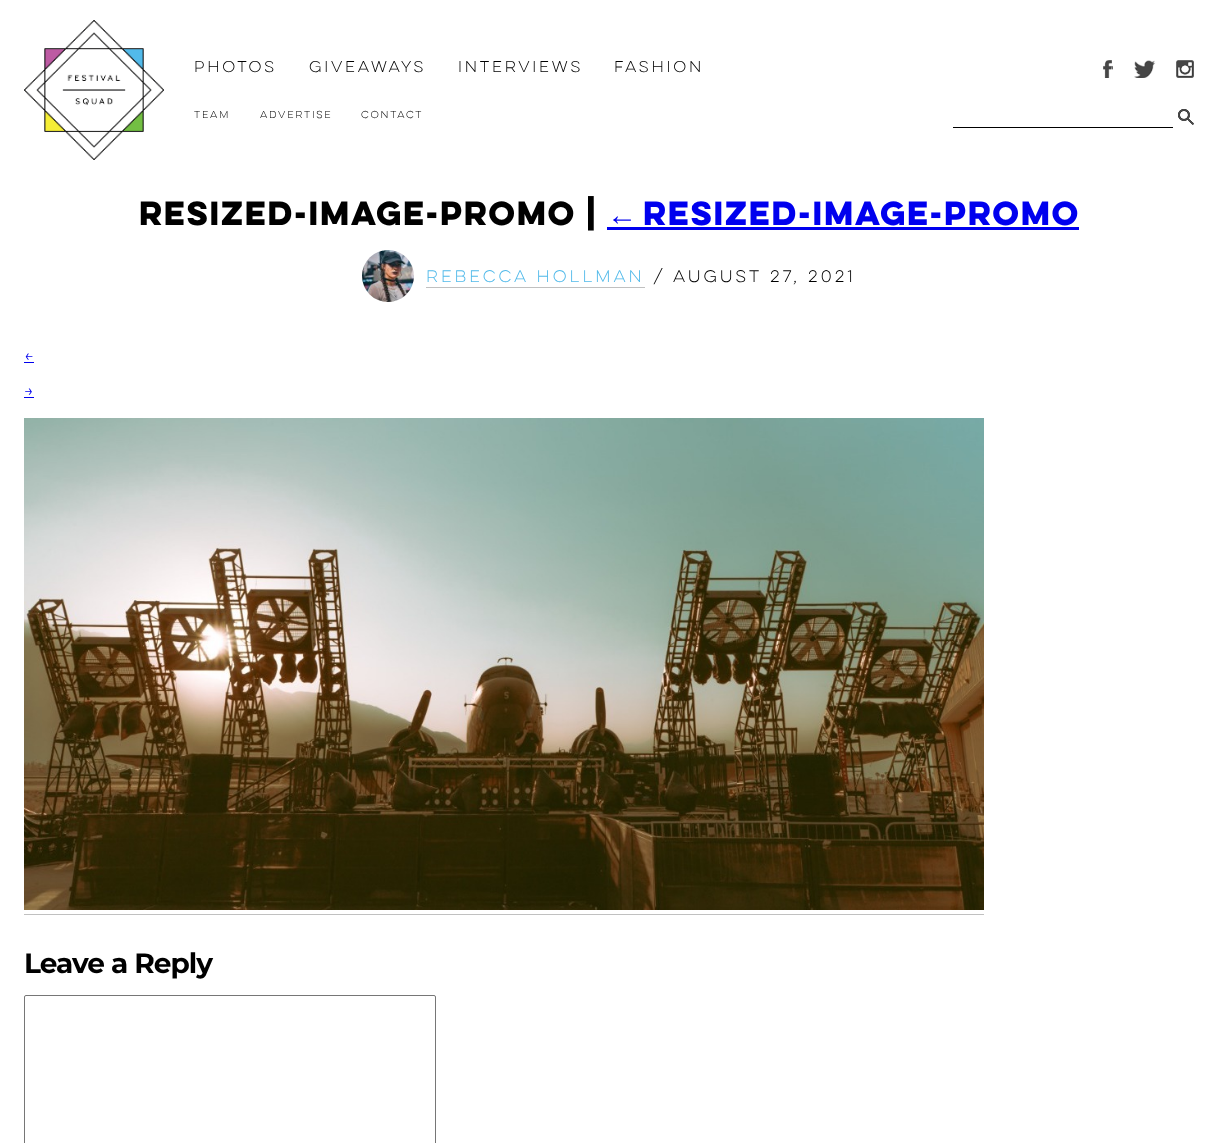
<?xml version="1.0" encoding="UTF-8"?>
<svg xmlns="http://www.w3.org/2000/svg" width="1218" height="1143">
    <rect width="100%" height="100%" fill="#FFFFFF"/>
    <image x="24" y="20" width="140" height="140" href="img_01.png"/>
    <text x="194" y="72" font-family="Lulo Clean" font-size="14" fill="#000000">Photos</text>
    <text x="309" y="72" font-family="Lulo Clean" font-size="14" fill="#000000">Giveaways</text>
    <text x="458" y="72" font-family="Lulo Clean" font-size="14" fill="#000000">Interviews</text>
    <text x="614" y="72" font-family="Lulo Clean" font-size="14" fill="#000000">Fashion</text>
    <image x="1103" y="60" width="10" height="18" href="img_02.png"/>
    <image x="1134" y="60" width="22" height="18" href="img_03.png"/>
    <image x="1176" y="60" width="18" height="18" href="img_04.png"/>
    <text x="194" y="118" font-family="Lulo Clean" font-size="9" fill="#000000">Team</text>
    <text x="260" y="118" font-family="Lulo Clean" font-size="9" fill="#000000">Advertise</text>
    <text x="361" y="118" font-family="Lulo Clean" font-size="9" fill="#000000">Contact</text>
    <image x="1178" y="109" width="16" height="16" href="img_05.png"/>
    <image x="1178" y="109" width="16" height="16" href="img_06.png"/>
    <rect x="953" y="127" width="220" height="1" fill="#000000"/>
    <text x="139" y="225" font-family="Lulo Clean" font-size="30" font-weight="700" letter-spacing="-5" fill="#000000">resized-image-Promo |</text>
    <text x="607" y="225" font-family="Liberation Serif" font-size="30" font-weight="700" letter-spacing="-5" fill="#0000EE">←</text>
    <rect x="607" y="227" width="472" height="3" fill="#0000EE"/>
    <text x="643" y="225" font-family="Lulo Clean" font-size="30" font-weight="700" letter-spacing="-5" fill="#0000EE">resized-image-Promo</text>
    <image x="362" y="250" width="52" height="52" href="img_07.png"/>
    <text x="426" y="282" font-family="Lulo Clean" font-size="15" fill="#52BAEA">Rebecca Hollman</text>
    <rect x="426" y="287" width="219" height="1" fill="#C0C0C0"/>
    <text x="653" y="282" font-family="Lulo Clean" font-size="15" fill="#000000">/</text>
    <text x="673" y="282" font-family="Lulo Clean" font-size="15" fill="#000000">August 27, 2021</text>
    <text x="24" y="361" font-family="Montserrat" font-size="16" fill="#0000EE">←</text>
    <rect x="24" y="362" width="10" height="1" fill="#0000EE"/>
    <text x="24" y="396" font-family="Montserrat" font-size="16" fill="#0000EE">→</text>
    <rect x="24" y="397" width="10" height="1" fill="#0000EE"/>
    <image x="24" y="418" width="960" height="492" href="img_08.png"/>
    <rect x="24" y="914" width="960" height="1" fill="#C0C0C0"/>
    <text x="24" y="973" font-family="Montserrat" font-size="28" font-weight="700" letter-spacing="-1" fill="#000000">Leave a Reply</text>
    <rect x="24.5" y="995.5" width="411" height="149" rx="1.5" fill="none" stroke="#767676"/>
</svg>
